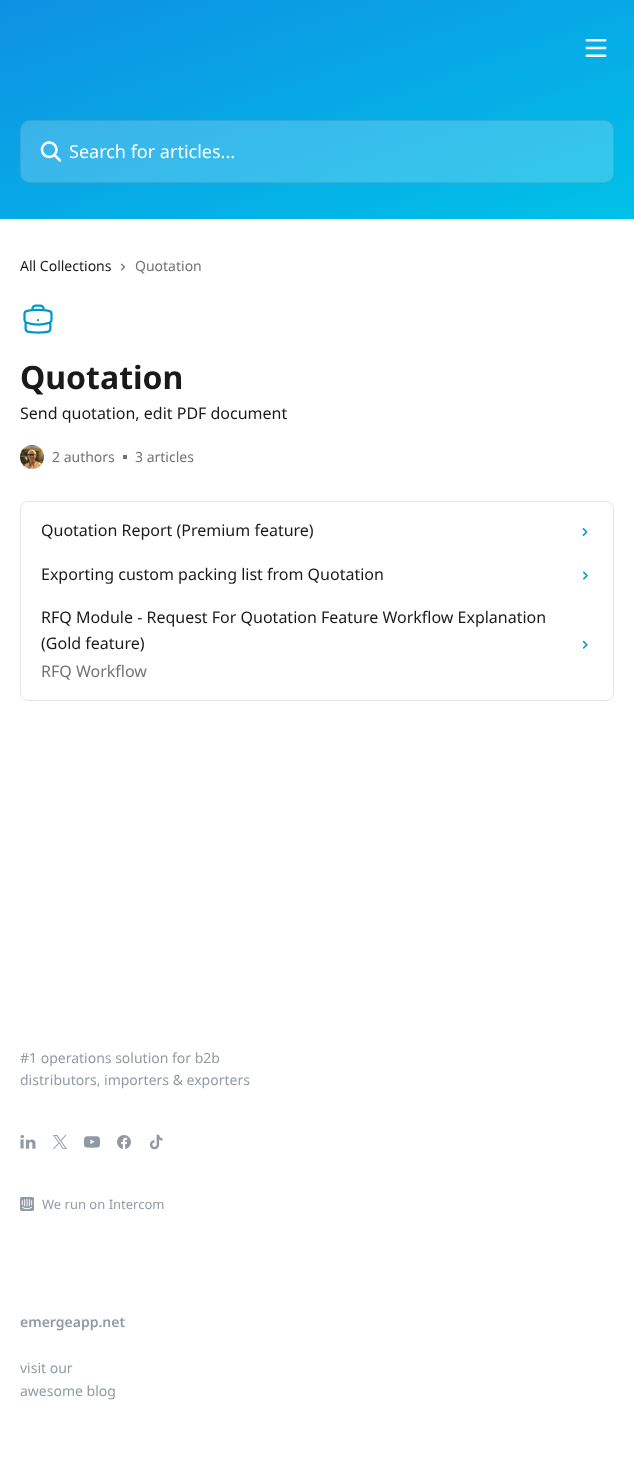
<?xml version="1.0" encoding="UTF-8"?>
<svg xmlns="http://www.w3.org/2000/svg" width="634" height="1466">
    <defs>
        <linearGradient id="g1" gradientUnits="userSpaceOnUse" x1="249" y1="-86" x2="385" y2="305"><stop offset="0" stop-color="#0E91E3"/><stop offset="1" stop-color="#00C1E8"/></linearGradient>
    </defs>
    <rect width="100%" height="100%" fill="#FFFFFF"/>
    <rect x="0" y="0" width="634" height="219" fill="url(#g1)"/>
    <image x="585" y="39" width="22" height="18" href="img_01.png"/>
    <rect x="20" y="120" width="594" height="63" rx="10" fill="#FFFFFF" fill-opacity="0.2"/>
    <rect x="20.5" y="120.5" width="593" height="62" rx="9.5" fill="none" stroke="#000000" stroke-opacity="0.08"/>
    <image x="40" y="141" width="22" height="21" href="img_02.png"/>
    <text x="69" y="158" font-family="Noto Sans" font-size="18" fill="#FFFFFF">Search for articles...</text>
    <text x="20" y="271" font-family="Noto Sans" font-size="14" fill="#1A1A1A">All Collections</text>
    <image x="121" y="263" width="4" height="8" href="img_03.png"/>
    <text x="135" y="271" font-family="Noto Sans" font-size="14" fill="#737373">Quotation</text>
    <image x="23" y="304" width="30" height="30" href="img_04.png"/>
    <text x="20" y="389" font-family="Noto Sans" font-size="32" font-weight="700" fill="#1A1A1A">Quotation</text>
    <text x="20" y="419" font-family="Noto Sans" font-size="16" fill="#1A1A1A">Send quotation, edit PDF document</text>
    <image x="20" y="445" width="24" height="24" href="img_05.png"/>
    <text x="52" y="462" font-family="Noto Sans" font-size="14" fill="#737373">2 authors</text>
    <rect x="123" y="455" width="4" height="4" fill="#737373"/>
    <text x="135" y="462" font-family="Noto Sans" font-size="14" fill="#737373">3 articles</text>
    <rect x="20.5" y="501.5" width="593" height="199" rx="7.5" fill="none" stroke="#E6E6E6"/>
    <text x="41" y="536" font-family="Noto Sans" font-size="16" fill="#1A1A1A">Quotation Report (Premium feature)</text>
    <image x="582" y="528" width="6" height="8" href="img_06.png"/>
    <text x="41" y="580" font-family="Noto Sans" font-size="16" fill="#1A1A1A">Exporting custom packing list from Quotation</text>
    <image x="583" y="571" width="5" height="9" href="img_07.png"/>
    <text font-family="Noto Sans" font-size="16" fill="#1A1A1A">
        <tspan x="41" y="623">RFQ Module - Request For Quotation Feature Workflow Explanation</tspan>
        <tspan x="41" y="649">(Gold feature)</tspan>
    </text>
    <text x="41" y="677" font-family="Noto Sans" font-size="16" fill="#737373">RFQ Workflow</text>
    <image x="582" y="640" width="6" height="9" href="img_08.png"/>
    <text font-family="Noto Sans" font-size="14" fill="#929BA5">
        <tspan x="20" y="1063">#1 operations solution for b2b</tspan>
        <tspan x="20" y="1085">distributors, importers &amp; exporters</tspan>
    </text>
    <image x="20" y="1135" width="16" height="14" href="img_09.png"/>
    <image x="53" y="1135" width="14" height="14" href="img_10.png"/>
    <image x="84" y="1136" width="16" height="12" href="img_11.png"/>
    <image x="117" y="1135" width="14" height="14" href="img_12.png"/>
    <image x="149" y="1134" width="14" height="16" href="img_13.png"/>
    <image x="20" y="1197" width="14" height="14" href="img_14.png"/>
    <text x="42" y="1209" font-family="Noto Sans" font-size="13" fill="#929BA5">We run on Intercom</text>
    <text x="20" y="1327" font-family="Noto Sans" font-size="14" font-weight="600" fill="#929BA5">emergeapp.net</text>
    <text font-family="Noto Sans" font-size="14" fill="#929BA5">
        <tspan x="20" y="1373">visit our</tspan>
        <tspan x="20" y="1396">awesome blog</tspan>
    </text>
</svg>
